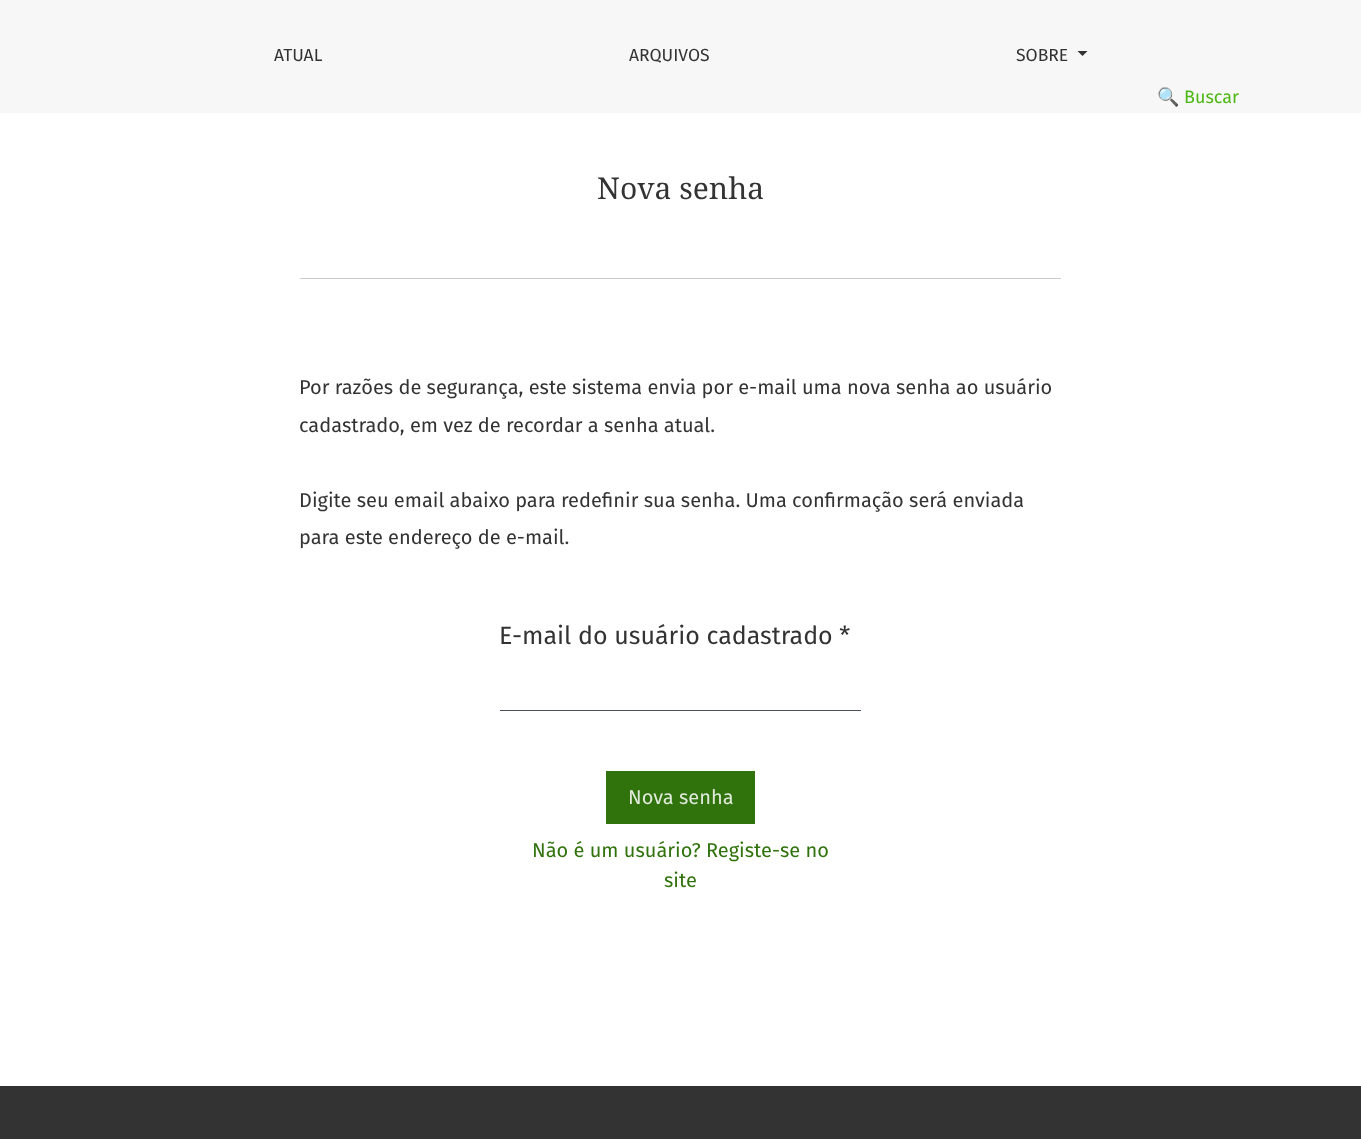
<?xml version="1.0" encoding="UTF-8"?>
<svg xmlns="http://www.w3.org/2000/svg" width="1361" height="1139">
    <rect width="100%" height="100%" fill="#FFFFFF"/>
    <rect x="0" y="0" width="1361" height="113" fill="#F7F7F7"/>
    <text x="274" y="61" font-family="Fira Sans" font-size="17.5" fill="#333333">ATUAL</text>
    <text x="629" y="61" font-family="Fira Sans" font-size="17.5" fill="#333333">ARQUIVOS</text>
    <text x="1016" y="61" font-family="Fira Sans" font-size="17.5" fill="#333333">SOBRE</text>
    <path d="M 1077.5 51 H 1087.5 L 1082.5 56 Z" fill="#333333"/>
    <text x="1157" y="103" font-family="Noto Color Emoji" font-size="18" fill="#4DB713">🔍</text>
    <text x="1184" y="103" font-family="Fira Sans" font-size="18" fill="#4DB713">Buscar</text>
    <text x="597" y="199" font-family="Droid Serif" font-size="30" fill="#333333">Nova senha</text>
    <rect x="300" y="278" width="761" height="1" fill="#CCCCCC"/>
    <text font-family="Fira Sans" font-size="20" fill="#333333">
        <tspan x="299" y="394">Por razões de segurança, este sistema envia por e-mail uma nova senha ao usuário</tspan>
        <tspan x="299" y="432">cadastrado, em vez de recordar a senha atual.</tspan>
    </text>
    <text font-family="Fira Sans" font-size="20" fill="#333333">
        <tspan x="299" y="507">Digite seu email abaixo para redefinir sua senha. Uma confirmação será enviada</tspan>
        <tspan x="299" y="544">para este endereço de e-mail.</tspan>
    </text>
    <text x="499" y="644" font-family="Fira Sans" font-size="25" fill="#333333">E-mail do usuário cadastrado *</text>
    <rect x="500" y="710" width="361" height="1" fill="#495057"/>
    <rect x="606" y="771" width="149" height="53" fill="#30720C"/>
    <text x="628" y="804" font-family="Fira Sans" font-size="20" fill="#E0EADB">Nova senha</text>
    <text x="532" y="857" font-family="Fira Sans" font-size="20" fill="#30720C">Não é um usuário? Registe-se no</text>
    <text x="664" y="887" font-family="Fira Sans" font-size="20" fill="#30720C">site</text>
    <rect x="0" y="1086" width="1361" height="53" fill="#333333"/>
</svg>
